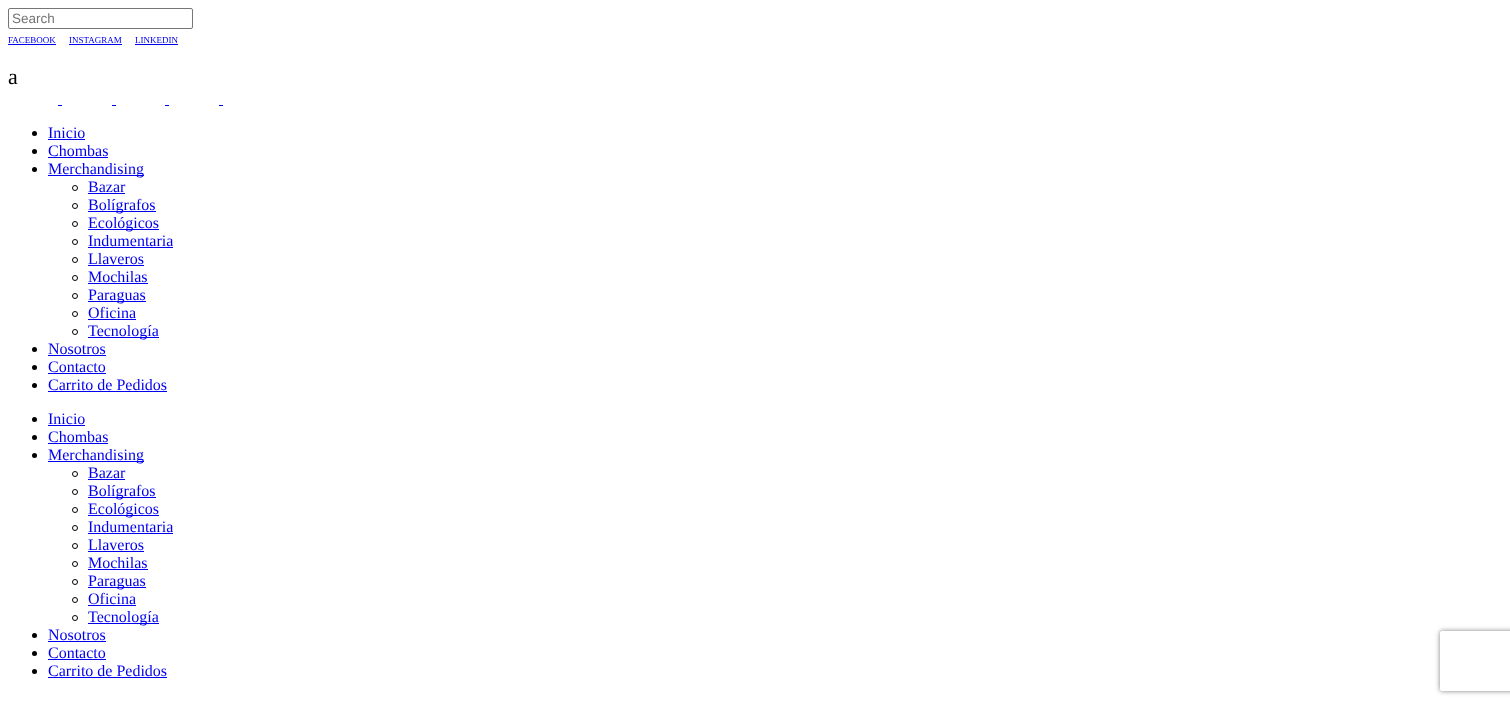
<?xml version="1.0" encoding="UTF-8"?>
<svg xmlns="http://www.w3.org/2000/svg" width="1510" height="705">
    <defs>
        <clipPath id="clip1"><path d="M 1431 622 H 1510 V 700 H 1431 Z M 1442 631 H 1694 C 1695 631 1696 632 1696 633 V 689 C 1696 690 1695 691 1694 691 H 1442 C 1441 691 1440 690 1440 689 V 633 C 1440 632 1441 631 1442 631 Z" clip-rule="evenodd"/></clipPath>
        <filter id="blur1" x="-50%" y="-200%" width="200%" height="500%"><feGaussianBlur stdDeviation="2.5"/></filter>
    </defs>
    <rect width="100%" height="100%" fill="#FFFFFF"/>
    <rect x="8.5" y="8.5" width="184" height="20" rx="1.5" fill="none" stroke="#767676"/>
    <text x="12" y="23" font-family="Liberation Sans" font-size="13.5" fill="#757575">Search</text>
    <text x="8" y="43" font-family="Liberation Serif" font-size="9" fill="#0000EE">FACEBOOK</text>
    <rect x="8" y="44" width="48" height="1" fill="#0000EE"/>
    <text x="69" y="43" font-family="Liberation Serif" font-size="9" fill="#0000EE">INSTAGRAM</text>
    <rect x="69" y="44" width="53" height="1" fill="#0000EE"/>
    <text x="135" y="43" font-family="Liberation Serif" font-size="9" fill="#0000EE">LINKEDIN</text>
    <rect x="135" y="44" width="43" height="1" fill="#0000EE"/>
    <text x="8" y="84" font-family="Liberation Serif" font-size="22" fill="#000000">a</text>
    <rect x="58" y="105" width="4" height="1" fill="#0000EE"/>
    <rect x="112" y="105" width="4" height="1" fill="#0000EE"/>
    <rect x="165" y="105" width="4" height="1" fill="#0000EE"/>
    <rect x="219" y="105" width="4" height="1" fill="#0000EE"/>
    <circle cx="34.5" cy="133.5" r="2.5" fill="#000000"/>
    <text x="48" y="138" font-family="Liberation Serif" font-size="16" fill="#0000EE">Inicio</text>
    <rect x="48" y="139" width="37" height="1" fill="#0000EE"/>
    <circle cx="34.5" cy="151.5" r="2.5" fill="#000000"/>
    <text x="48" y="156" font-family="Liberation Serif" font-size="16" fill="#0000EE">Chombas</text>
    <rect x="48" y="157" width="60" height="1" fill="#0000EE"/>
    <circle cx="34.5" cy="169.5" r="2.5" fill="#000000"/>
    <rect x="48" y="175" width="96" height="1" fill="#0000EE"/>
    <text x="48" y="174" font-family="Liberation Serif" font-size="16" fill="#0000EE">Merchandising</text>
    <circle cx="75" cy="188" r="2.5" fill="none" stroke="#000000"/>
    <text x="88" y="192" font-family="Liberation Serif" font-size="16" fill="#0000EE">Bazar</text>
    <rect x="88" y="193" width="37" height="1" fill="#0000EE"/>
    <circle cx="75" cy="206" r="2.5" fill="none" stroke="#000000"/>
    <rect x="88" y="211" width="68" height="1" fill="#0000EE"/>
    <text x="88" y="210" font-family="Liberation Serif" font-size="16" fill="#0000EE">Bolígrafos</text>
    <circle cx="75" cy="224" r="2.5" fill="none" stroke="#000000"/>
    <rect x="88" y="229" width="71" height="1" fill="#0000EE"/>
    <text x="88" y="228" font-family="Liberation Serif" font-size="16" fill="#0000EE">Ecológicos</text>
    <circle cx="75" cy="242" r="2.5" fill="none" stroke="#000000"/>
    <text x="88" y="246" font-family="Liberation Serif" font-size="16" fill="#0000EE">Indumentaria</text>
    <rect x="88" y="247" width="85" height="1" fill="#0000EE"/>
    <circle cx="75" cy="260" r="2.5" fill="none" stroke="#000000"/>
    <text x="88" y="264" font-family="Liberation Serif" font-size="16" fill="#0000EE">Llaveros</text>
    <rect x="88" y="265" width="56" height="1" fill="#0000EE"/>
    <circle cx="75" cy="278" r="2.5" fill="none" stroke="#000000"/>
    <text x="88" y="282" font-family="Liberation Serif" font-size="16" fill="#0000EE">Mochilas</text>
    <rect x="88" y="283" width="60" height="1" fill="#0000EE"/>
    <circle cx="75" cy="296" r="2.5" fill="none" stroke="#000000"/>
    <rect x="88" y="301" width="58" height="1" fill="#0000EE"/>
    <text x="88" y="300" font-family="Liberation Serif" font-size="16" fill="#0000EE">Paraguas</text>
    <circle cx="75" cy="314" r="2.5" fill="none" stroke="#000000"/>
    <text x="88" y="318" font-family="Liberation Serif" font-size="16" fill="#0000EE">Oficina</text>
    <rect x="88" y="319" width="48" height="1" fill="#0000EE"/>
    <circle cx="75" cy="332" r="2.5" fill="none" stroke="#000000"/>
    <rect x="88" y="337" width="71" height="1" fill="#0000EE"/>
    <text x="88" y="336" font-family="Liberation Serif" font-size="16" fill="#0000EE">Tecnología</text>
    <circle cx="34.5" cy="349.5" r="2.5" fill="#000000"/>
    <text x="48" y="354" font-family="Liberation Serif" font-size="16" fill="#0000EE">Nosotros</text>
    <rect x="48" y="355" width="58" height="1" fill="#0000EE"/>
    <circle cx="34.5" cy="367.5" r="2.5" fill="#000000"/>
    <text x="48" y="372" font-family="Liberation Serif" font-size="16" fill="#0000EE">Contacto</text>
    <rect x="48" y="373" width="58" height="1" fill="#0000EE"/>
    <circle cx="34.5" cy="385.5" r="2.5" fill="#000000"/>
    <text x="48" y="390" font-family="Liberation Serif" font-size="16" fill="#0000EE">Carrito de Pedidos</text>
    <rect x="48" y="391" width="119" height="1" fill="#0000EE"/>
    <circle cx="34.5" cy="419.5" r="2.5" fill="#000000"/>
    <text x="48" y="424" font-family="Liberation Serif" font-size="16" fill="#0000EE">Inicio</text>
    <rect x="48" y="425" width="37" height="1" fill="#0000EE"/>
    <circle cx="34.5" cy="437.5" r="2.5" fill="#000000"/>
    <text x="48" y="442" font-family="Liberation Serif" font-size="16" fill="#0000EE">Chombas</text>
    <rect x="48" y="443" width="60" height="1" fill="#0000EE"/>
    <circle cx="34.5" cy="455.5" r="2.5" fill="#000000"/>
    <rect x="48" y="461" width="96" height="1" fill="#0000EE"/>
    <text x="48" y="460" font-family="Liberation Serif" font-size="16" fill="#0000EE">Merchandising</text>
    <circle cx="75" cy="474" r="2.5" fill="none" stroke="#000000"/>
    <text x="88" y="478" font-family="Liberation Serif" font-size="16" fill="#0000EE">Bazar</text>
    <rect x="88" y="479" width="37" height="1" fill="#0000EE"/>
    <circle cx="75" cy="492" r="2.5" fill="none" stroke="#000000"/>
    <rect x="88" y="497" width="68" height="1" fill="#0000EE"/>
    <text x="88" y="496" font-family="Liberation Serif" font-size="16" fill="#0000EE">Bolígrafos</text>
    <circle cx="75" cy="510" r="2.5" fill="none" stroke="#000000"/>
    <rect x="88" y="515" width="71" height="1" fill="#0000EE"/>
    <text x="88" y="514" font-family="Liberation Serif" font-size="16" fill="#0000EE">Ecológicos</text>
    <circle cx="75" cy="528" r="2.5" fill="none" stroke="#000000"/>
    <text x="88" y="532" font-family="Liberation Serif" font-size="16" fill="#0000EE">Indumentaria</text>
    <rect x="88" y="533" width="85" height="1" fill="#0000EE"/>
    <circle cx="75" cy="546" r="2.5" fill="none" stroke="#000000"/>
    <text x="88" y="550" font-family="Liberation Serif" font-size="16" fill="#0000EE">Llaveros</text>
    <rect x="88" y="551" width="56" height="1" fill="#0000EE"/>
    <circle cx="75" cy="564" r="2.5" fill="none" stroke="#000000"/>
    <text x="88" y="568" font-family="Liberation Serif" font-size="16" fill="#0000EE">Mochilas</text>
    <rect x="88" y="569" width="60" height="1" fill="#0000EE"/>
    <circle cx="75" cy="582" r="2.5" fill="none" stroke="#000000"/>
    <rect x="88" y="587" width="58" height="1" fill="#0000EE"/>
    <text x="88" y="586" font-family="Liberation Serif" font-size="16" fill="#0000EE">Paraguas</text>
    <circle cx="75" cy="600" r="2.5" fill="none" stroke="#000000"/>
    <text x="88" y="604" font-family="Liberation Serif" font-size="16" fill="#0000EE">Oficina</text>
    <rect x="88" y="605" width="48" height="1" fill="#0000EE"/>
    <circle cx="75" cy="618" r="2.5" fill="none" stroke="#000000"/>
    <rect x="88" y="623" width="71" height="1" fill="#0000EE"/>
    <text x="88" y="622" font-family="Liberation Serif" font-size="16" fill="#0000EE">Tecnología</text>
    <circle cx="34.5" cy="635.5" r="2.5" fill="#000000"/>
    <text x="48" y="640" font-family="Liberation Serif" font-size="16" fill="#0000EE">Nosotros</text>
    <rect x="48" y="641" width="58" height="1" fill="#0000EE"/>
    <circle cx="34.5" cy="653.5" r="2.5" fill="#000000"/>
    <text x="48" y="658" font-family="Liberation Serif" font-size="16" fill="#0000EE">Contacto</text>
    <rect x="48" y="659" width="58" height="1" fill="#0000EE"/>
    <circle cx="34.5" cy="671.5" r="2.5" fill="#000000"/>
    <text x="48" y="676" font-family="Liberation Serif" font-size="16" fill="#0000EE">Carrito de Pedidos</text>
    <rect x="48" y="677" width="119" height="1" fill="#0000EE"/>
    <g clip-path="url(#clip1)">
        <rect x="1440" y="631" width="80" height="60" rx="2" fill="#808080" filter="url(#blur1)"/>
    </g>
</svg>
